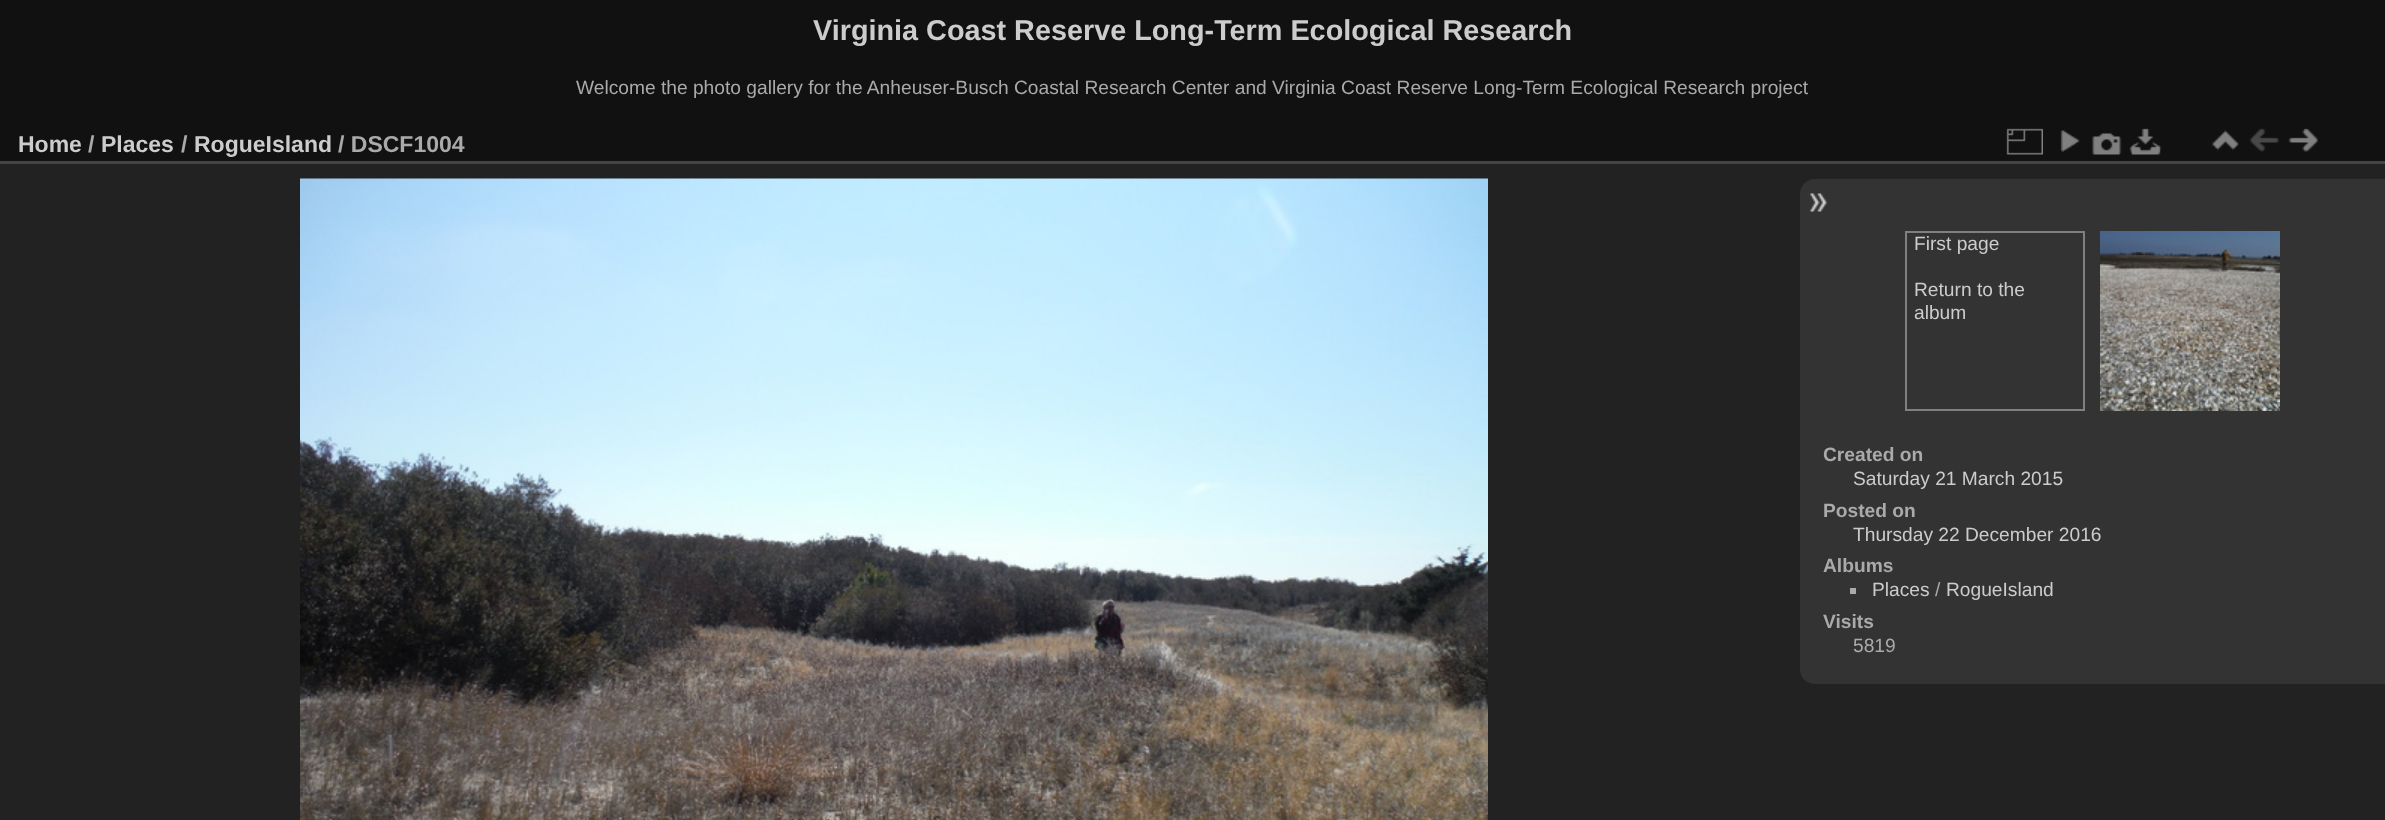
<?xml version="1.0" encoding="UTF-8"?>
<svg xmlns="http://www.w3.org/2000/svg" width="2385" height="820">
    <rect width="100%" height="100%" fill="#111111"/>
    <text x="813" y="40" font-family="Liberation Sans" font-size="28.8" font-weight="700" fill="#CCCCCC">Virginia Coast Reserve Long-Term Ecological Research</text>
    <text x="576" y="94" font-family="Liberation Sans" font-size="19.2" fill="#AAAAAA">Welcome the photo gallery for the Anheuser-Busch Coastal Research Center and Virginia Coast Reserve Long-Term Ecological Research project</text>
    <rect x="0" y="164" width="2385" height="656" fill="#222222"/>
    <rect x="0" y="161" width="2385" height="3" fill="#444444"/>
    <text x="18" y="152" font-family="Liberation Sans" font-size="23" font-weight="700" fill="#CCCCCC">Home</text>
    <text x="88" y="152" font-family="Liberation Sans" font-size="23" font-weight="700" fill="#AAAAAA">/</text>
    <text x="101" y="152" font-family="Liberation Sans" font-size="23" font-weight="700" fill="#CCCCCC">Places</text>
    <text x="181" y="152" font-family="Liberation Sans" font-size="23" font-weight="700" fill="#AAAAAA">/</text>
    <text x="194" y="152" font-family="Liberation Sans" font-size="23" font-weight="700" fill="#CCCCCC">RogueIsland</text>
    <text x="338" y="152" font-family="Liberation Sans" font-size="23" font-weight="700" fill="#AAAAAA">/ DSCF1004</text>
    <image x="2006" y="128" width="37" height="27" href="img_01.png"/>
    <image x="2060" y="130" width="20" height="22" href="img_02.png"/>
    <image x="2092" y="133" width="30" height="22" href="img_03.png"/>
    <image x="2129" y="128" width="33" height="27" href="img_04.png"/>
    <image x="2212" y="130" width="27" height="21" href="img_05.png"/>
    <image x="2250" y="128" width="29" height="24" href="img_06.png"/>
    <image x="2288" y="128" width="30" height="24" href="img_07.png"/>
    <image x="300" y="178" width="1188" height="642" href="img_08.png"/>
    <path d="M 1815 179 H 2385 V 684 H 1815 C 1806.5 684 1800 677.5 1800 669 V 194 C 1800 185.5 1806.5 179 1815 179 Z" fill="#333333"/>
    <image x="1809" y="193" width="19" height="19" href="img_09.png"/>
    <rect x="1906" y="232" width="178" height="178" fill="none" stroke="#808080" stroke-width="2"/>
    <text x="1914" y="250" font-family="Liberation Sans" font-size="19.2" fill="#CCCCCC">First page</text>
    <text font-family="Liberation Sans" font-size="19.2" fill="#CCCCCC">
        <tspan x="1914" y="296">Return to the</tspan>
        <tspan x="1914" y="319">album</tspan>
    </text>
    <image x="2100" y="231" width="180" height="180" href="img_10.png"/>
    <text x="1823" y="461" font-family="Liberation Sans" font-size="19.2" font-weight="700" fill="#AAAAAA">Created on</text>
    <text x="1853" y="485" font-family="Liberation Sans" font-size="19.2" fill="#CCCCCC">Saturday 21 March 2015</text>
    <text x="1823" y="517" font-family="Liberation Sans" font-size="19.2" font-weight="700" fill="#AAAAAA">Posted on</text>
    <text x="1853" y="541" font-family="Liberation Sans" font-size="19.2" fill="#CCCCCC">Thursday 22 December 2016</text>
    <text x="1823" y="572" font-family="Liberation Sans" font-size="19.2" font-weight="700" fill="#AAAAAA">Albums</text>
    <rect x="1850" y="588" width="6" height="6" fill="#AAAAAA"/>
    <text x="1872" y="596" font-family="Liberation Sans" font-size="19.2" fill="#CCCCCC">Places</text>
    <text x="1935" y="596" font-family="Liberation Sans" font-size="19.2" fill="#AAAAAA">/</text>
    <text x="1946" y="596" font-family="Liberation Sans" font-size="19.2" fill="#CCCCCC">RogueIsland</text>
    <text x="1823" y="628" font-family="Liberation Sans" font-size="19.2" font-weight="700" fill="#AAAAAA">Visits</text>
    <text x="1853" y="652" font-family="Liberation Sans" font-size="19.2" fill="#AAAAAA">5819</text>
</svg>
